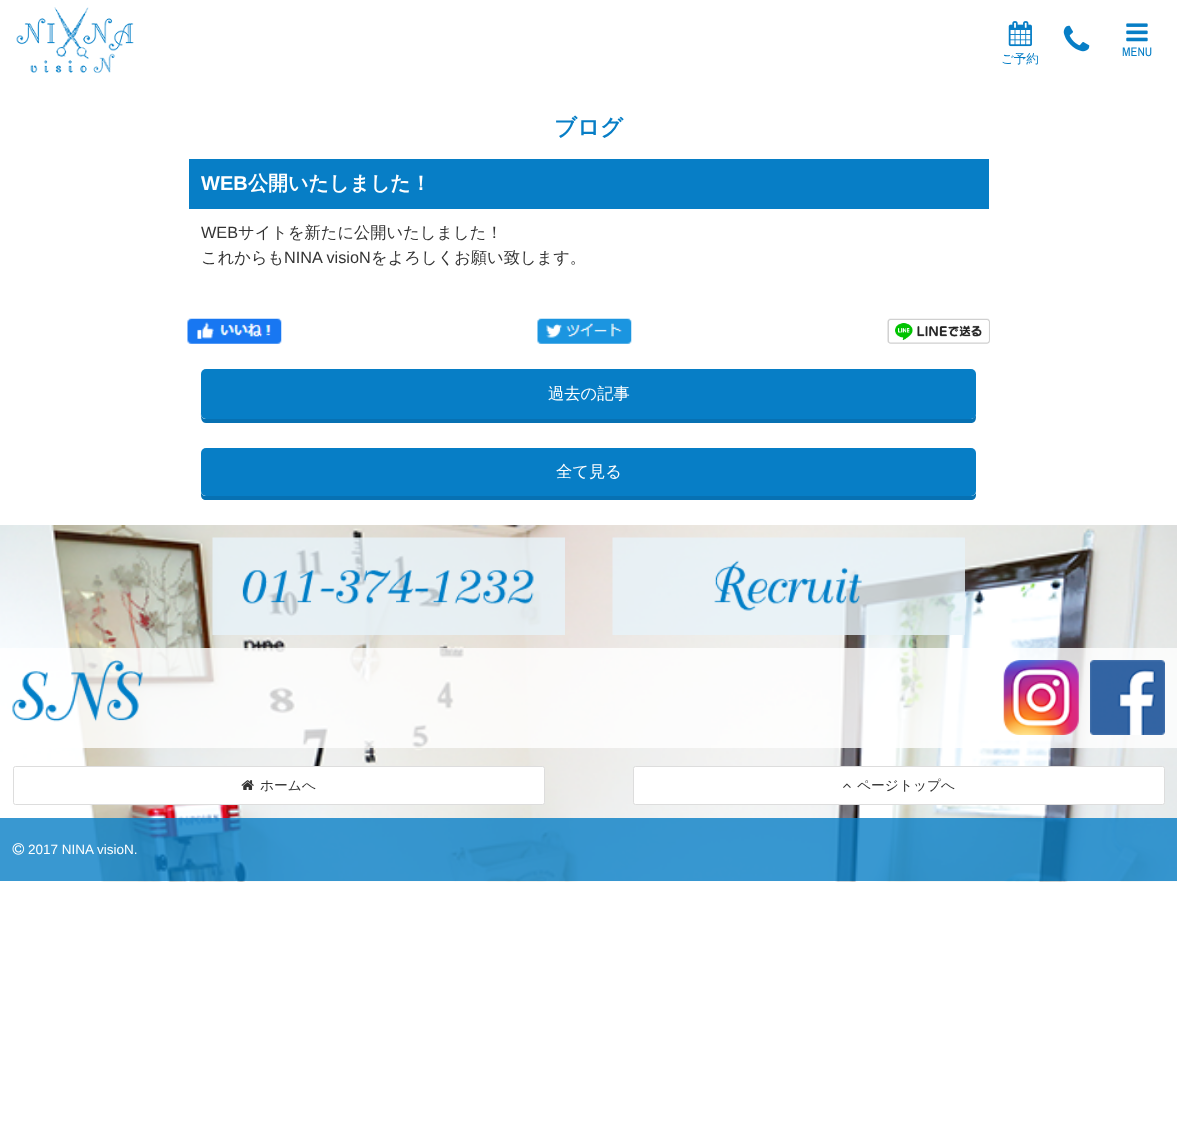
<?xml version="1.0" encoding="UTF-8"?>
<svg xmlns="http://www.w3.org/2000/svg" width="1177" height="1133">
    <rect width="100%" height="100%" fill="#FFFFFF"/>
    <image x="16" y="7" width="118" height="66" href="img_01.png"/>
    <image x="1063" y="25" width="27" height="27" href="img_02.png"/>
    <image x="1126" y="23" width="22" height="19" href="img_03.png"/>
    <text x="1122" y="56" font-family="Archivo Narrow" font-size="12.5" fill="#077EC6">MENU</text>
    <image x="1008" y="21" width="24" height="26" href="img_04.png"/>
    <text x="1001" y="63" font-family="WenQuanYi Zen Hei" font-size="12.5" font-weight="500" fill="#077EC6">ご予約</text>
    <text x="554" y="135" font-family="WenQuanYi Zen Hei" font-size="22.5" font-weight="700" fill="#077EC6">ブログ</text>
    <rect x="189" y="159" width="800" height="50" fill="#077EC6"/>
    <text x="201" y="190" font-family="Liberation Sans" font-size="20" font-weight="700" fill="#FFFFFF">WEB</text>
    <text x="248" y="190" font-family="WenQuanYi Zen Hei" font-size="20" font-weight="700" fill="#FFFFFF">公開いたしました！</text>
    <text x="201" y="238" font-family="Liberation Sans" font-size="16.25" fill="#333333">WEB</text>
    <text x="238" y="238" font-family="WenQuanYi Zen Hei" font-size="16.25" font-weight="500" fill="#333333">サイトを新たに公開いたしました！</text>
    <text x="201" y="263" font-family="WenQuanYi Zen Hei" font-size="16.25" font-weight="500" fill="#333333">これからも</text>
    <text x="284" y="263" font-family="Liberation Sans" font-size="16.25" fill="#333333">NINA visioN</text>
    <text x="371" y="263" font-family="WenQuanYi Zen Hei" font-size="16.25" font-weight="500" fill="#333333">をよろしくお願い致します。</text>
    <image x="187" y="318" width="95" height="26" href="img_05.png"/>
    <image x="537" y="318" width="95" height="26" href="img_06.png"/>
    <image x="887" y="318" width="103" height="26" href="img_07.png"/>
    <path d="M 201 376 V 411 C 201 415 200 423 206 423 H 972 C 976 422 976 419 976 415 C 975 417 973 419 971 419 H 206 C 203 419 201 417 201 414 Z" fill="#0771B3"/>
    <rect x="201" y="369" width="775" height="50" rx="5" fill="#077EC6"/>
    <text x="548" y="399" font-family="WenQuanYi Zen Hei" font-size="16.25" font-weight="500" fill="#FFFFFF">過去の記事</text>
    <path d="M 201 454 V 495 C 201 498 203 500 206 500 H 971 C 974 500 976 498 976 495 V 493 C 975 495 973 496 971 496 H 206 C 203 496 201 494 201 491 Z" fill="#0771B3"/>
    <rect x="201" y="448" width="775" height="48" rx="5" fill="#077EC6"/>
    <text x="556" y="477" font-family="WenQuanYi Zen Hei" font-size="16.25" font-weight="500" fill="#FFFFFF">全て見る</text>
    <image x="0" y="525" width="1177" height="357" href="img_08.png"/>
    <image x="212" y="537" width="353" height="98" href="img_09.png"/>
    <image x="612" y="537" width="353" height="98" href="img_10.png"/>
    <rect x="0" y="648" width="1177" height="100" fill="#FFFFFF" fill-opacity="0.8"/>
    <image x="12" y="660" width="131" height="62" href="img_11.png"/>
    <image x="1003" y="660" width="76" height="75" href="img_12.png"/>
    <image x="1090" y="660" width="75" height="75" href="img_13.png"/>
    <rect x="13.5" y="766.5" width="531" height="38" rx="2" fill="#FFFFFF" stroke="#DDDDDD"/>
    <image x="241" y="780" width="13" height="10" href="img_14.png"/>
    <text x="260" y="790" font-family="WenQuanYi Zen Hei" font-size="13.75" font-weight="500" fill="#333333">ホームへ</text>
    <rect x="633.5" y="766.5" width="531" height="38" rx="2" fill="#FFFFFF" stroke="#DDDDDD"/>
    <image x="843" y="783" width="8" height="5" href="img_15.png"/>
    <text x="857" y="790" font-family="WenQuanYi Zen Hei" font-size="13.75" font-weight="500" fill="#333333">ページトップへ</text>
    <rect x="0" y="818" width="1177" height="63" fill="#077EC6" fill-opacity="0.8"/>
    <image x="12" y="843" width="13" height="12" href="img_16.png"/>
    <text x="28" y="854" font-family="Liberation Sans" font-size="13.5" fill="#FFFFFF">2017 NINA visioN.</text>
</svg>
